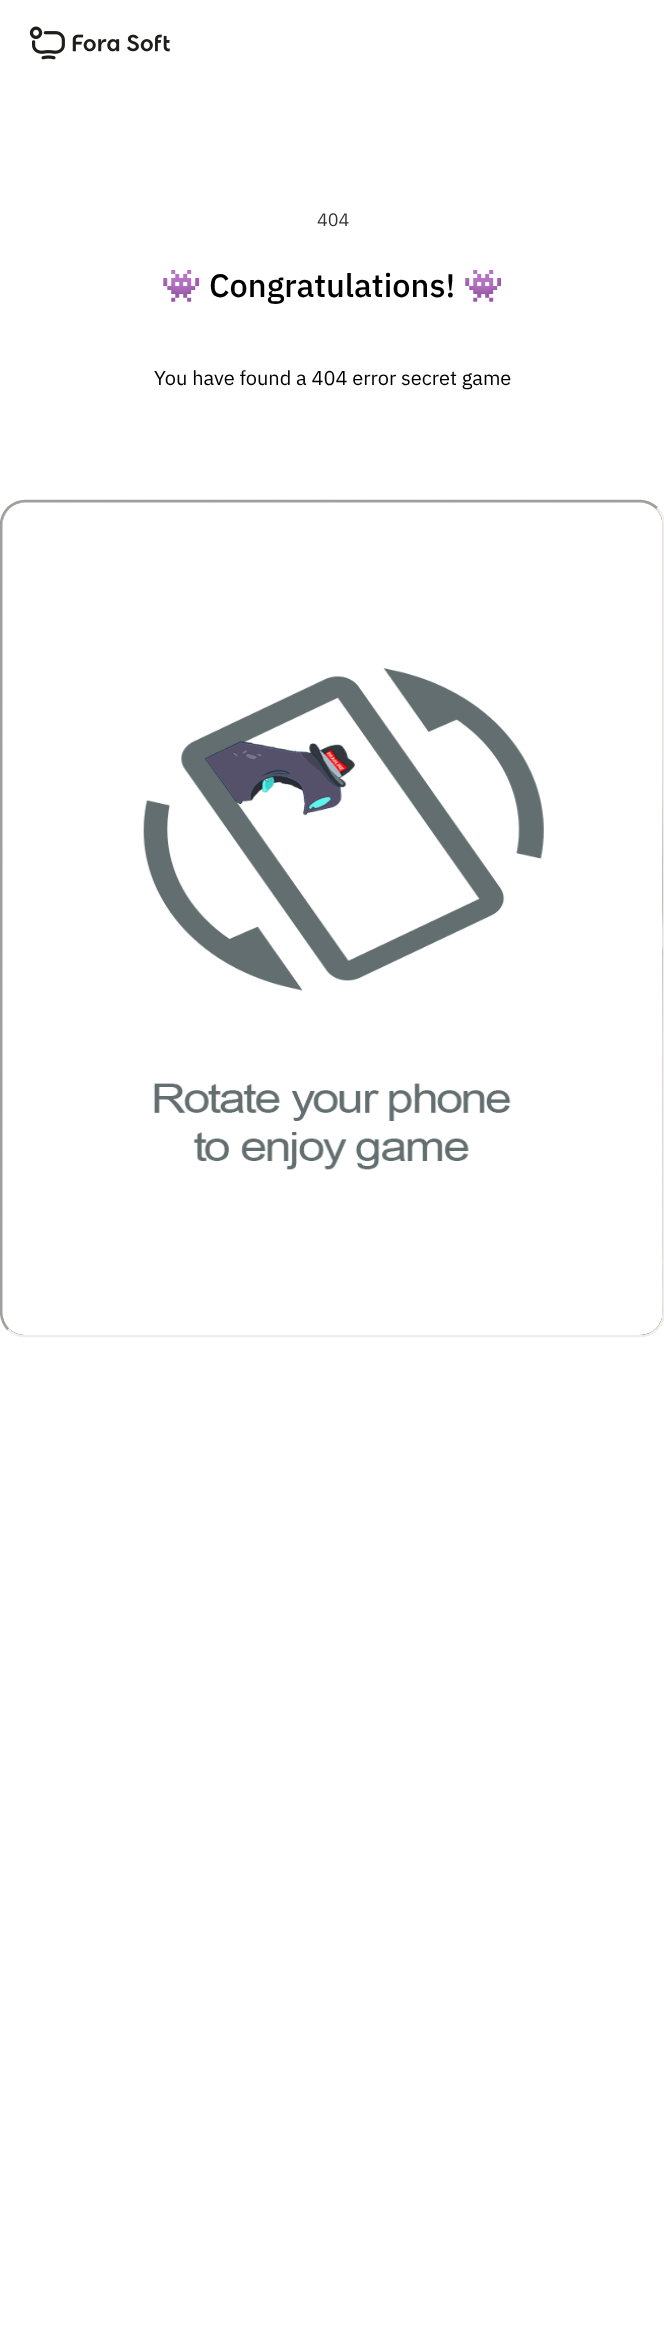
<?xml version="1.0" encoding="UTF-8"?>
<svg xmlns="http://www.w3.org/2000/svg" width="664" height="2331">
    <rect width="100%" height="100%" fill="#FFFFFF"/>
    <image x="29" y="26" width="141" height="34" href="img_01.png"/>
    <text x="317" y="226" font-family="IBM Plex Sans" font-size="18" fill="#333333">404</text>
    <text x="161" y="297" font-family="Noto Color Emoji" font-size="32.5" fill="#000000">👾</text>
    <text x="209" y="297" font-family="IBM Plex Sans" font-size="32.5" font-weight="500" fill="#000000">Congratulations!</text>
    <text x="463" y="297" font-family="Noto Color Emoji" font-size="32.5" fill="#000000">👾</text>
    <text x="154" y="385" font-family="IBM Plex Sans" font-size="20" fill="#000000">You have found a 404 error secret game</text>
    <path d="M 657 508 C 661 512.5 664 518.5 664 525 V 1312.5 C 664 1319 661 1325 657 1329.5 C 652.5 1333.5 646.5 1336 640 1336 H 25 C 18.5 1336 12.5 1333.5 8 1329.5" fill="none" stroke="#EEEEEE" stroke-width="2.5"/>
    <path d="M 8 1329.5 C 4 1325 1.5 1319 1 1312.5 V 525 C 1 518.5 4 512.5 8 508 C 12.5 504 18.5 501 25 501 H 640 C 646.5 501 652.5 504 657 508" fill="none" stroke="#9F9F9F" stroke-width="2.5"/>
    <image x="2" y="502" width="661" height="833" href="img_02.png"/>
</svg>
